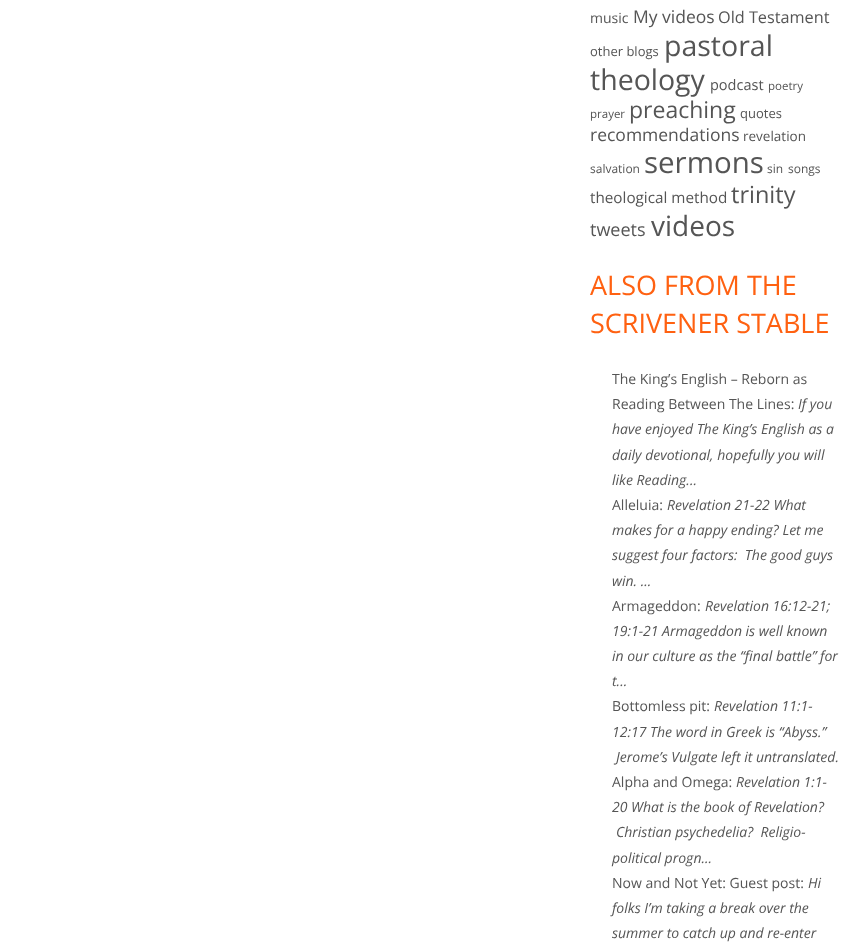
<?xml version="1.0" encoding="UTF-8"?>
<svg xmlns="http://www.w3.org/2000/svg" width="863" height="944">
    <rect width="100%" height="100%" fill="#FFFFFF"/>
    <text x="590" y="23" font-family="Open Sans" font-size="14" fill="#555555">music</text>
    <text x="633" y="23" font-family="Open Sans" font-size="17.5" fill="#555555">My videos</text>
    <text x="718" y="23" font-family="Open Sans" font-size="16.25" fill="#555555">Old Testament</text>
    <text x="590" y="56" font-family="Open Sans" font-size="13" fill="#555555">other blogs</text>
    <text x="664" y="56" font-family="Open Sans" font-size="28.5" fill="#555555">pastoral</text>
    <text x="590" y="90" font-family="Open Sans" font-size="28.5" fill="#555555">theology</text>
    <text x="710" y="90" font-family="Open Sans" font-size="14.5" fill="#555555">podcast</text>
    <text x="768" y="90" font-family="Open Sans" font-size="11.5" fill="#555555">poetry</text>
    <text x="590" y="118" font-family="Open Sans" font-size="11.5" fill="#555555">prayer</text>
    <text x="629" y="118" font-family="Open Sans" font-size="23" fill="#555555">preaching</text>
    <text x="740" y="118" font-family="Open Sans" font-size="13" fill="#555555">quotes</text>
    <text x="590" y="141" font-family="Open Sans" font-size="17.5" fill="#555555">recommendations</text>
    <text x="743" y="141" font-family="Open Sans" font-size="13.5" fill="#555555">revelation</text>
    <text x="590" y="173" font-family="Open Sans" font-size="12" fill="#555555">salvation</text>
    <text x="644" y="173" font-family="Open Sans" font-size="29.5" fill="#555555">sermons</text>
    <text x="767" y="173" font-family="Open Sans" font-size="12" fill="#555555">sin</text>
    <text x="788" y="173" font-family="Open Sans" font-size="12" fill="#555555">songs</text>
    <text x="590" y="203" font-family="Open Sans" font-size="15.25" fill="#555555">theological method</text>
    <text x="731" y="203" font-family="Open Sans" font-size="23.5" fill="#555555">trinity</text>
    <text x="590" y="236" font-family="Open Sans" font-size="18" fill="#555555">tweets</text>
    <text x="651" y="236" font-family="Open Sans" font-size="28" fill="#555555">videos</text>
    <text font-family="Open Sans" font-size="27" fill="#FF6111">
        <tspan x="590" y="295">ALSO FROM THE</tspan>
        <tspan x="590" y="333">SCRIVENER STABLE</tspan>
    </text>
    <text font-family="Open Sans" font-size="14" fill="#555555">
        <tspan x="612" y="384">The King’s English – Reborn as</tspan>
        <tspan x="612" y="409">Reading Between The Lines:</tspan>
    </text>
    <text x="798" y="409" font-family="Open Sans" font-size="14" font-style="italic" fill="#555555">If you</text>
    <text font-family="Open Sans" font-size="14" font-style="italic" fill="#555555">
        <tspan x="612" y="434">have enjoyed The King’s English as a</tspan>
        <tspan x="612" y="460">daily devotional, hopefully you will</tspan>
        <tspan x="612" y="485">like Reading...</tspan>
    </text>
    <text x="612" y="510" font-family="Open Sans" font-size="14" fill="#555555">Alleluia:</text>
    <text x="667" y="510" font-family="Open Sans" font-size="14" font-style="italic" fill="#555555">Revelation 21-22 What</text>
    <text font-family="Open Sans" font-size="14" font-style="italic" fill="#555555" xml:space="preserve"><tspan x="612" y="535">makes for a happy ending? Let me</tspan><tspan x="612" y="560">suggest four factors:  The good guys</tspan><tspan x="612" y="586">win. ...</tspan></text>
    <text x="612" y="611" font-family="Open Sans" font-size="14" fill="#555555">Armageddon:</text>
    <text x="705" y="611" font-family="Open Sans" font-size="14" font-style="italic" fill="#555555">Revelation 16:12-21;</text>
    <text font-family="Open Sans" font-size="14" font-style="italic" fill="#555555">
        <tspan x="612" y="636">19:1-21 Armageddon is well known</tspan>
        <tspan x="612" y="661">in our culture as the “final battle” for</tspan>
        <tspan x="612" y="686">t...</tspan>
    </text>
    <text x="612" y="711" font-family="Open Sans" font-size="14" fill="#555555">Bottomless pit:</text>
    <text x="714" y="711" font-family="Open Sans" font-size="14" font-style="italic" fill="#555555">Revelation 11:1-</text>
    <text x="612" y="737" font-family="Open Sans" font-size="14" font-style="italic" fill="#555555">12:17 The word in Greek is “Abyss.”</text>
    <text x="616" y="762" font-family="Open Sans" font-size="14" font-style="italic" fill="#555555">Jerome’s Vulgate left it untranslated.</text>
    <text x="612" y="787" font-family="Open Sans" font-size="14" fill="#555555">Alpha and Omega:</text>
    <text x="736" y="787" font-family="Open Sans" font-size="14" font-style="italic" fill="#555555">Revelation 1:1-</text>
    <text x="612" y="812" font-family="Open Sans" font-size="14" font-style="italic" fill="#555555">20 What is the book of Revelation?</text>
    <text x="616" y="837" font-family="Open Sans" font-size="14" font-style="italic" fill="#555555" xml:space="preserve">Christian psychedelia?  Religio-</text>
    <text x="612" y="863" font-family="Open Sans" font-size="14" font-style="italic" fill="#555555">political progn...</text>
    <text x="612" y="888" font-family="Open Sans" font-size="14" fill="#555555">Now and Not Yet: Guest post:</text>
    <text x="808" y="888" font-family="Open Sans" font-size="14" font-style="italic" fill="#555555">Hi</text>
    <text font-family="Open Sans" font-size="14" font-style="italic" fill="#555555">
        <tspan x="612" y="913">folks I’m taking a break over the</tspan>
        <tspan x="612" y="938">summer to catch up and re-enter</tspan>
    </text>
</svg>
